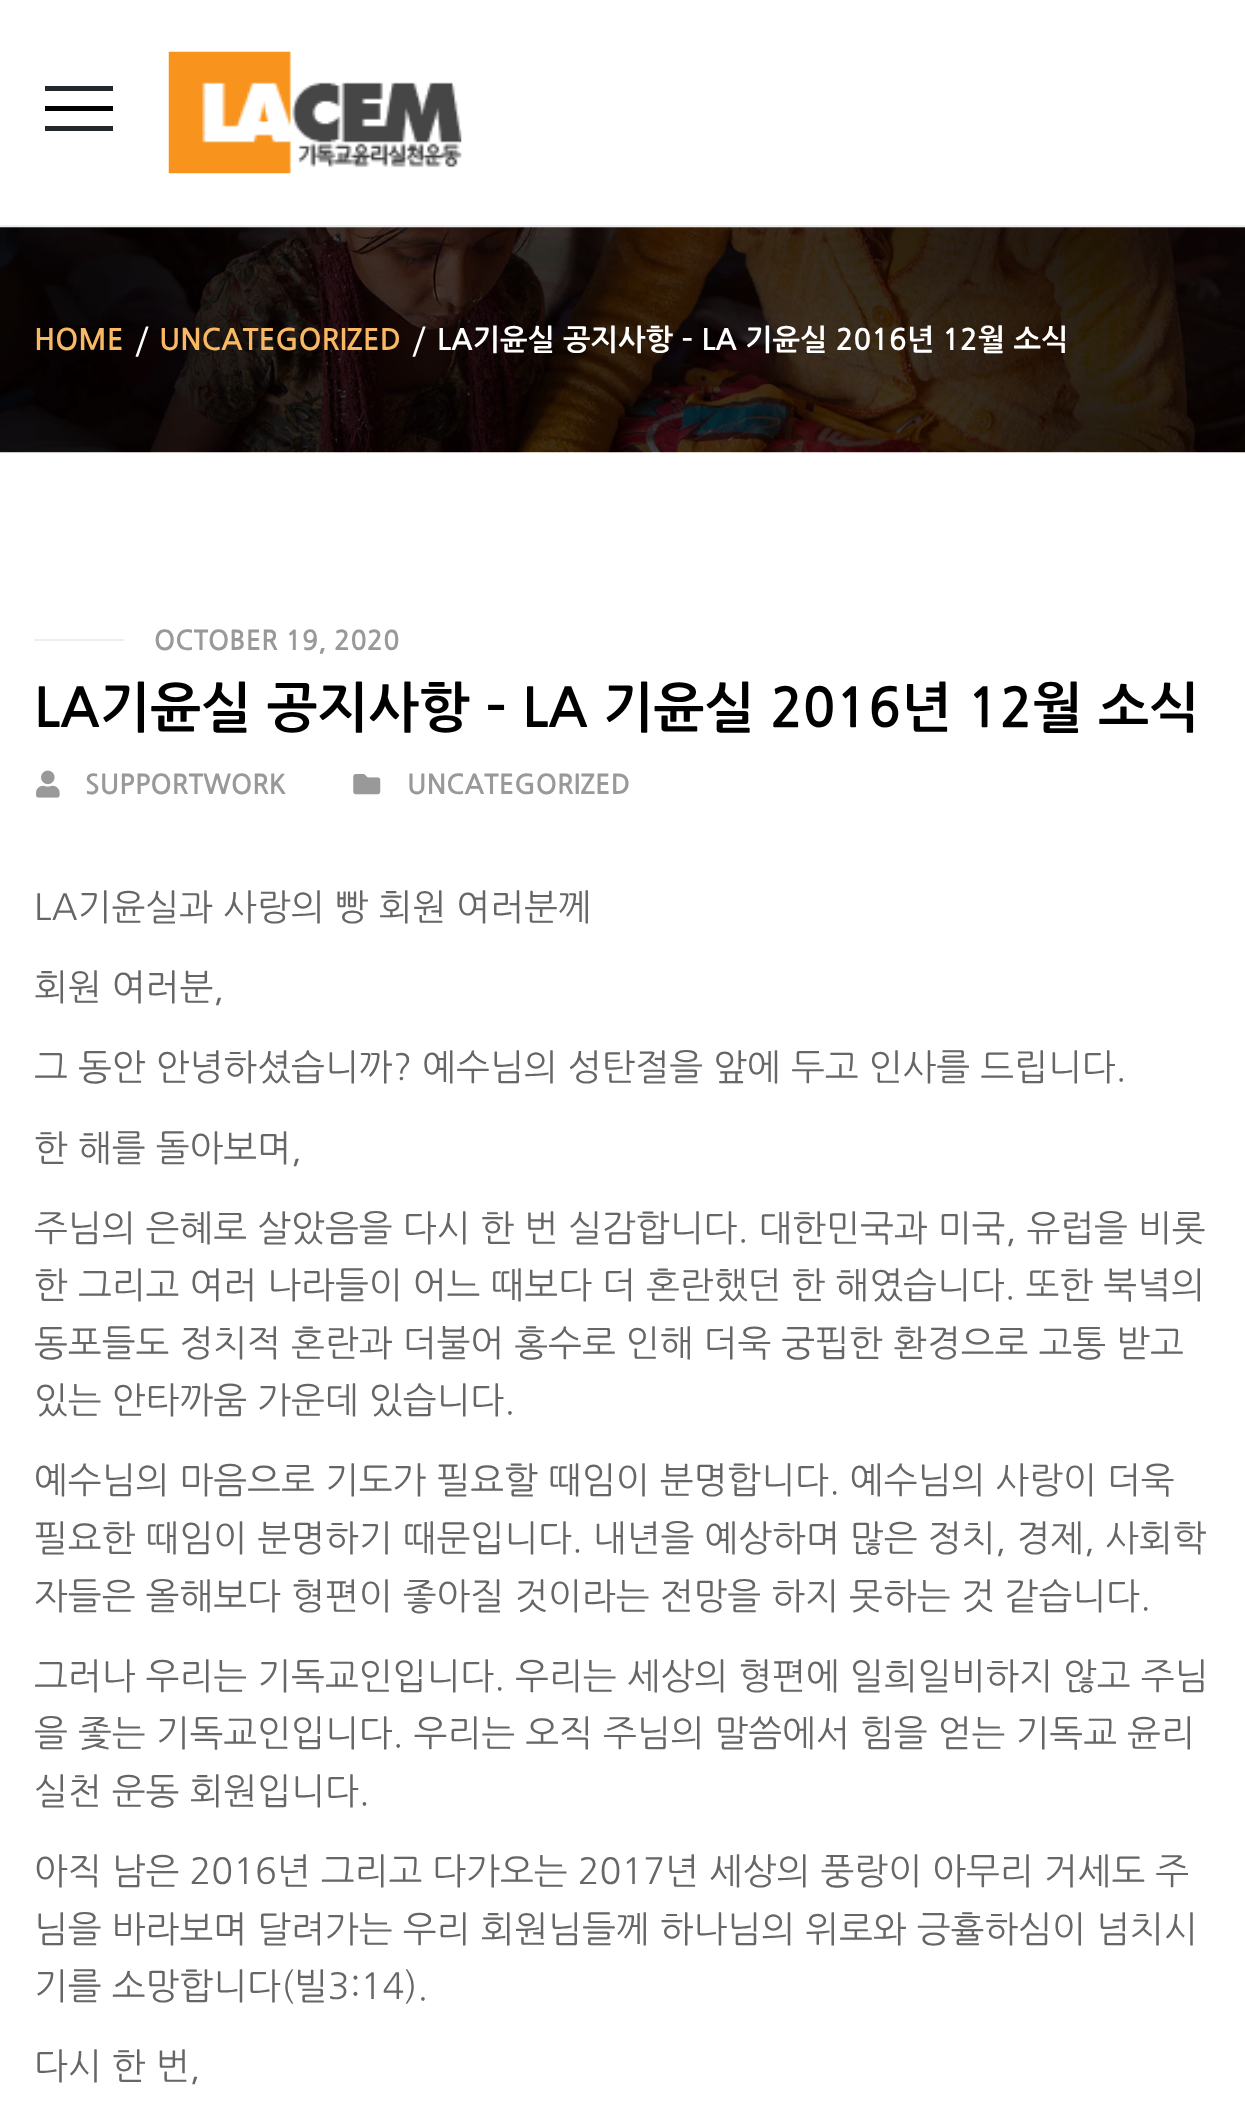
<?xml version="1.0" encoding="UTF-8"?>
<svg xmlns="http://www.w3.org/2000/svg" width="1245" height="2118">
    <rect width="100%" height="100%" fill="#FFFFFF"/>
    <rect x="0" y="225" width="1245" height="2" fill="#EEEEEE"/>
    <rect x="45" y="106" width="68" height="5" fill="#000000"/>
    <rect x="45" y="86" width="68" height="5" fill="#23282D"/>
    <rect x="45" y="126" width="68" height="5" fill="#23282D"/>
    <image x="168" y="51" width="294" height="123" href="img_01.png"/>
    <image x="0" y="227" width="1245" height="226" href="img_02.png"/>
    <text x="34" y="350" font-family="NanumGothic" font-size="29.25" font-weight="700" fill="#F8B864">HOME</text>
    <text x="135" y="354" font-family="NanumGothic" font-size="36" fill="#FFFFFF">/</text>
    <text x="159" y="350" font-family="NanumGothic" font-size="29.25" font-weight="700" fill="#F8B864">UNCATEGORIZED</text>
    <text x="412" y="354" font-family="NanumGothic" font-size="36" fill="#FFFFFF">/</text>
    <text x="437" y="350" font-family="NanumGothic" font-size="29.25" font-weight="700" fill="#FFFFFF">LA기윤실 공지사항 – LA 기윤실 2016년 12월 소식</text>
    <rect x="34" y="639" width="90" height="2" fill="#EEEEEE"/>
    <text x="154" y="650" font-family="NanumGothic" font-size="27" font-weight="700" fill="#999999">OCTOBER 19, 2020</text>
    <text x="34" y="727" font-family="NanumGothic" font-size="54" font-weight="700" fill="#000000">LA기윤실 공지사항 – LA 기윤실 2016년 12월 소식</text>
    <image x="36" y="770" width="24" height="28" href="img_03.png"/>
    <text x="85" y="794" font-family="NanumGothic" font-size="27" font-weight="700" fill="#999999">SUPPORTWORK</text>
    <image x="353" y="774" width="28" height="21" href="img_04.png"/>
    <text x="407" y="794" font-family="NanumGothic" font-size="27" font-weight="700" fill="#999999">UNCATEGORIZED</text>
    <text x="34" y="920" font-family="NanumGothic" font-size="36" fill="#666666">LA기윤실과 사랑의 빵 회원 여러분께</text>
    <text x="34" y="1000" font-family="NanumGothic" font-size="36" fill="#666666">회원 여러분,</text>
    <text x="34" y="1080" font-family="NanumGothic" font-size="36" fill="#666666">그 동안 안녕하셨습니까? 예수님의 성탄절을 앞에 두고 인사를 드립니다.</text>
    <text x="34" y="1161" font-family="NanumGothic" font-size="36" fill="#666666">한 해를 돌아보며,</text>
    <text font-family="NanumGothic" font-size="36" fill="#666666">
        <tspan x="34" y="1241">주님의 은혜로 살았음을 다시 한 번 실감합니다. 대한민국과 미국, 유럽을 비롯</tspan>
        <tspan x="34" y="1298">한 그리고 여러 나라들이 어느 때보다 더 혼란했던 한 해였습니다. 또한 북녘의</tspan>
        <tspan x="34" y="1356">동포들도 정치적 혼란과 더불어 홍수로 인해 더욱 궁핍한 환경으로 고통 받고</tspan>
        <tspan x="34" y="1413">있는 안타까움 가운데 있습니다.</tspan>
    </text>
    <text font-family="NanumGothic" font-size="36" fill="#666666">
        <tspan x="34" y="1493">예수님의 마음으로 기도가 필요할 때임이 분명합니다. 예수님의 사랑이 더욱</tspan>
        <tspan x="34" y="1551">필요한 때임이 분명하기 때문입니다. 내년을 예상하며 많은 정치, 경제, 사회학</tspan>
        <tspan x="34" y="1609">자들은 올해보다 형편이 좋아질 것이라는 전망을 하지 못하는 것 같습니다.</tspan>
    </text>
    <text font-family="NanumGothic" font-size="36" fill="#666666">
        <tspan x="34" y="1689">그러나 우리는 기독교인입니다. 우리는 세상의 형편에 일희일비하지 않고 주님</tspan>
        <tspan x="34" y="1746">을 좇는 기독교인입니다. 우리는 오직 주님의 말씀에서 힘을 얻는 기독교 윤리</tspan>
        <tspan x="34" y="1804">실천 운동 회원입니다.</tspan>
    </text>
    <text font-family="NanumGothic" font-size="36" fill="#666666">
        <tspan x="34" y="1884">아직 남은 2016년 그리고 다가오는 2017년 세상의 풍랑이 아무리 거세도 주</tspan>
        <tspan x="34" y="1942">님을 바라보며 달려가는 우리 회원님들께 하나님의 위로와 긍휼하심이 넘치시</tspan>
        <tspan x="34" y="1999">기를 소망합니다(빌3:14).</tspan>
    </text>
    <text x="34" y="2079" font-family="NanumGothic" font-size="36" fill="#666666">다시 한 번,</text>
</svg>
